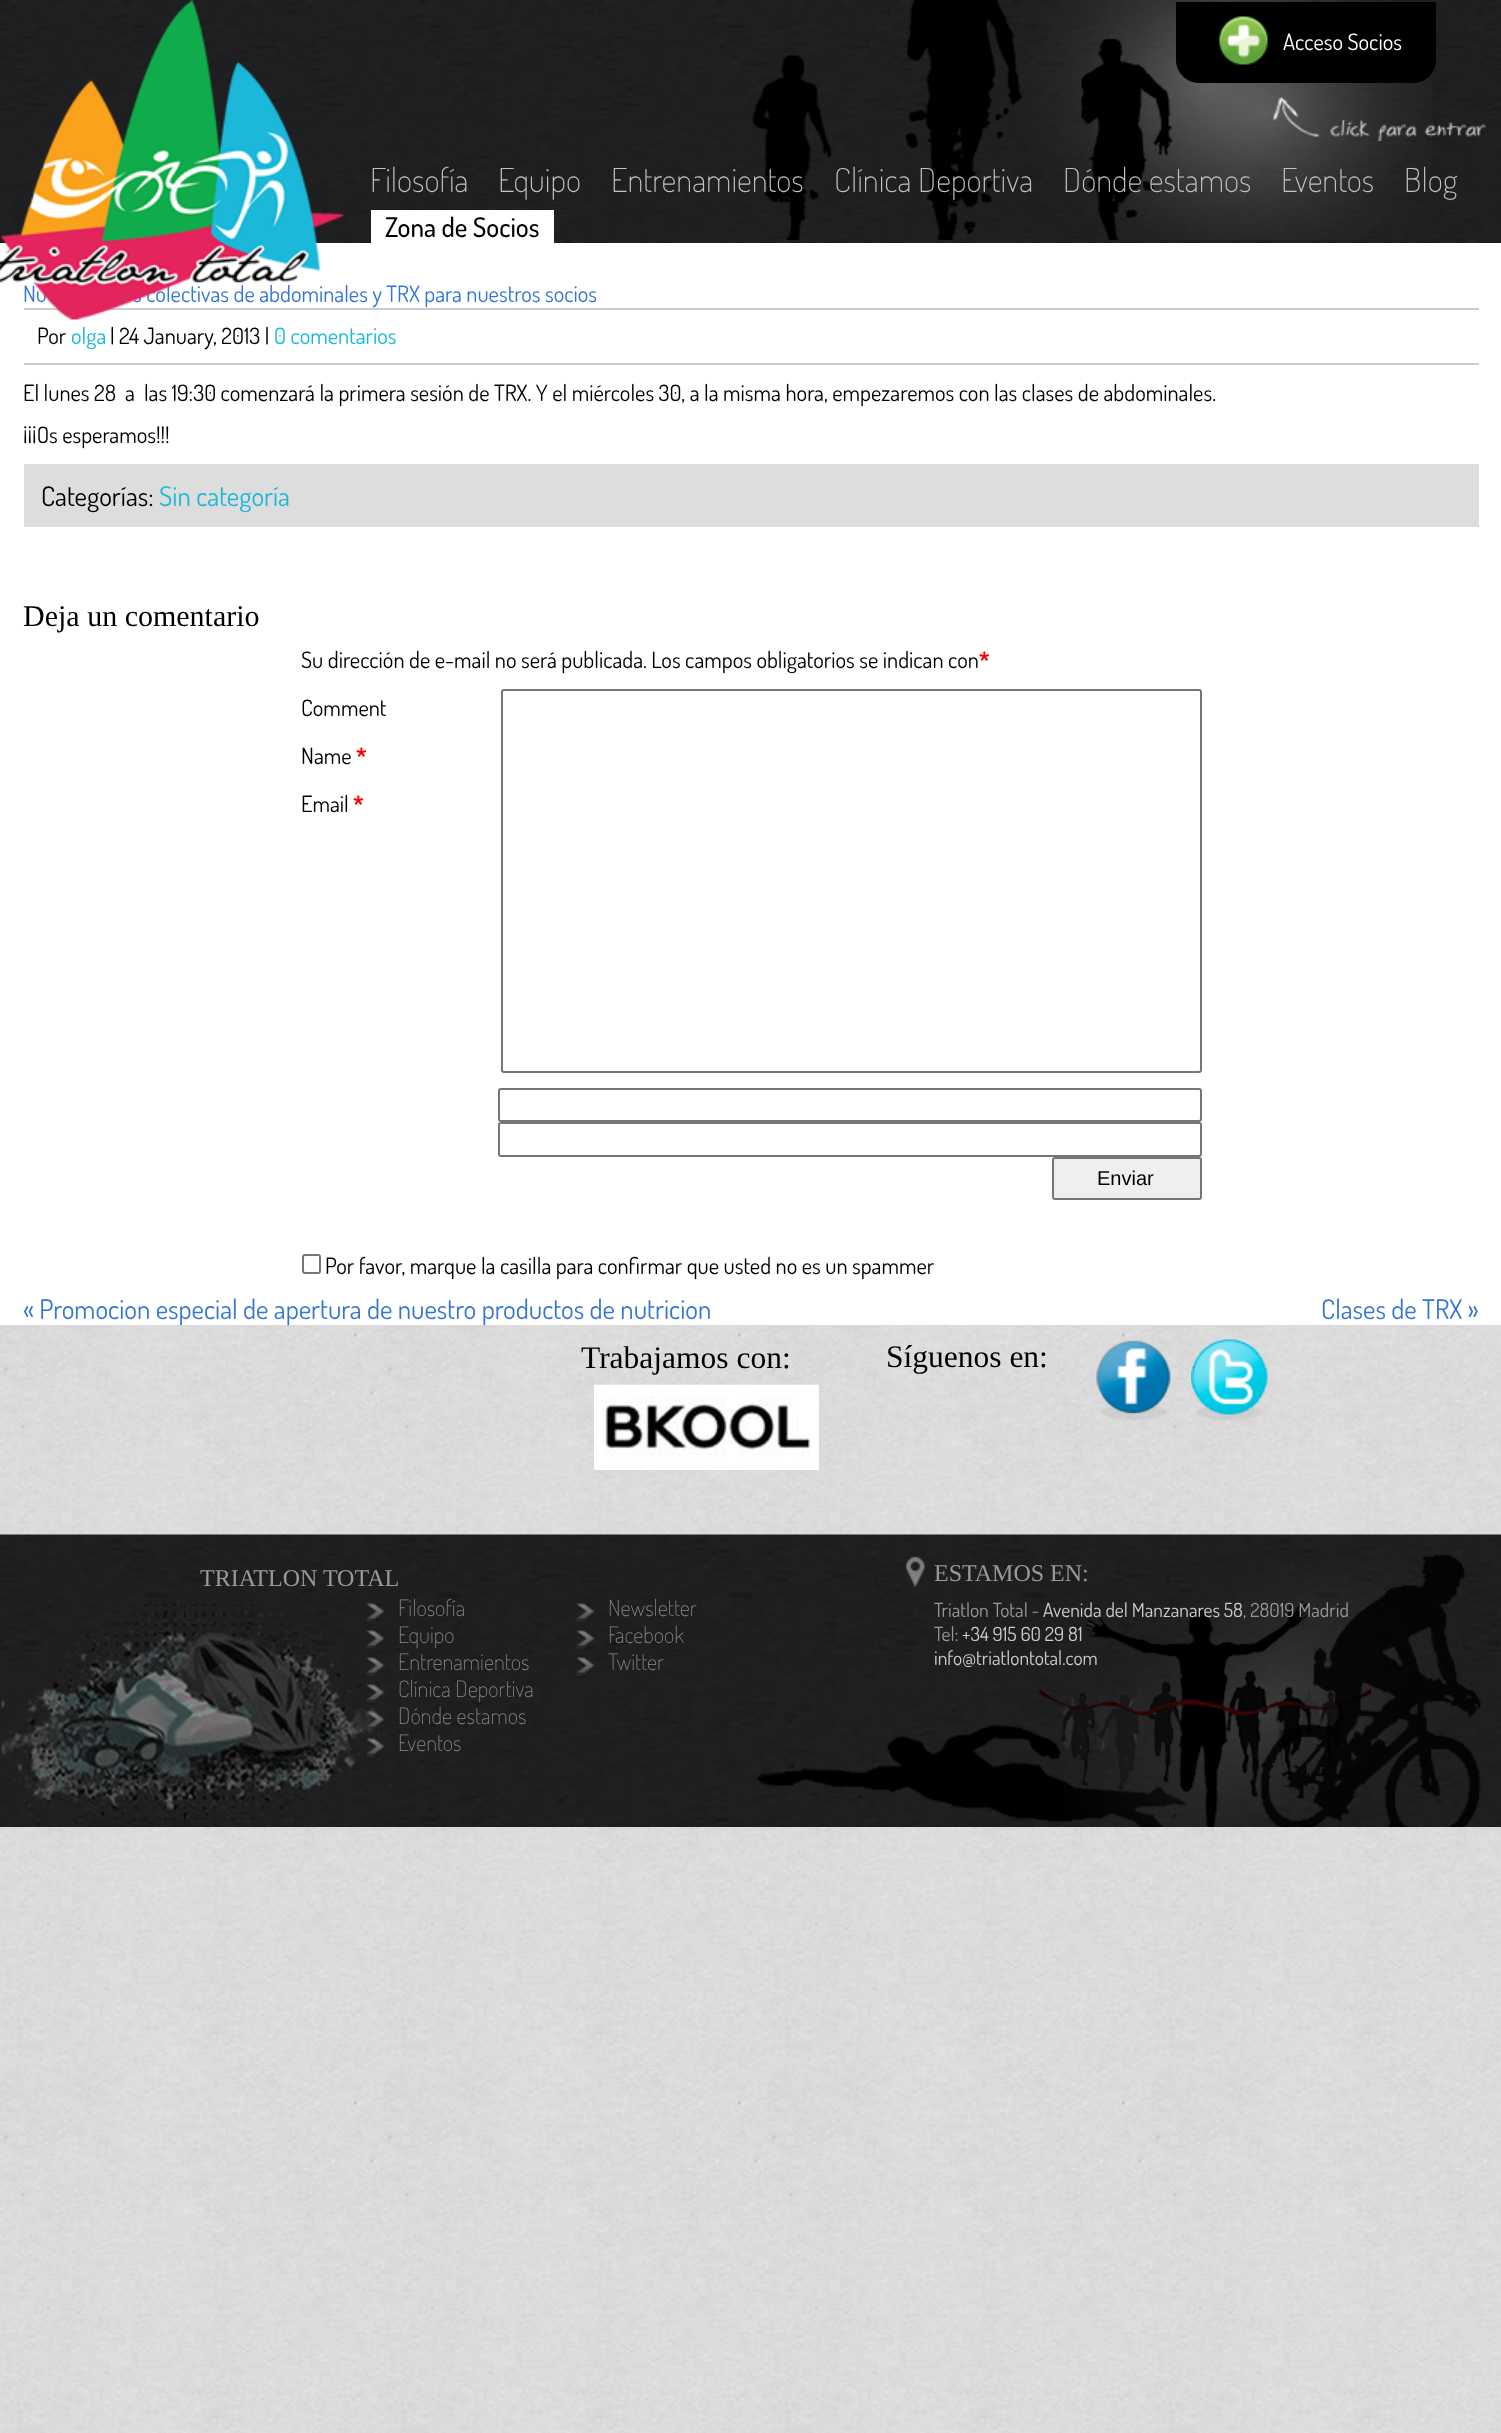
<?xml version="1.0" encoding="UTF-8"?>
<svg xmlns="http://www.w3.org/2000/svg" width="1501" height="2433">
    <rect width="100%" height="100%" fill="#FFFFFF"/>
    <image x="0" y="1325" width="1501" height="1108" href="img_01.png"/>
    <image x="0" y="0" width="1501" height="243" href="img_02.png"/>
    <image x="752" y="0" width="680" height="240" href="img_03.png"/>
    <text x="23" y="302" font-family="Dosis" font-size="22.5" fill="#3477D2">Nu</text>
    <text x="133" y="302" font-family="Dosis" font-size="22.5" fill="#3477D2">s colectivas de abdominales y TRX para nuestros socios</text>
    <rect x="24" y="308" width="1455" height="2" fill="#CCCCCC"/>
    <image x="0" y="0" width="345" height="320" href="img_04.png"/>
    <path d="M 1176 2 H 1436 V 60 C 1436 72.5 1425.5 83 1413 83 H 1199 C 1186.5 83 1176 72.5 1176 60 Z" fill="#000000"/>
    <image x="1219" y="16" width="49" height="49" href="img_05.png"/>
    <text x="1283" y="50" font-family="Dosis" font-size="22.5" fill="#FFFFFF">Acceso Socios</text>
    <image x="1272" y="97" width="215" height="44" href="img_06.png"/>
    <text x="370" y="192" font-family="Dosis" font-size="33" font-weight="200" fill="#C2C2C2">Filosofía</text>
    <text x="498" y="192" font-family="Dosis" font-size="33" font-weight="200" fill="#C2C2C2">Equipo</text>
    <text x="611" y="192" font-family="Dosis" font-size="33" font-weight="200" fill="#C2C2C2">Entrenamientos</text>
    <text x="834" y="192" font-family="Dosis" font-size="33" font-weight="200" fill="#C2C2C2">Clínica Deportiva</text>
    <text x="1063" y="192" font-family="Dosis" font-size="33" font-weight="200" fill="#C2C2C2">Dónde estamos</text>
    <text x="1281" y="192" font-family="Dosis" font-size="33" font-weight="200" fill="#C2C2C2">Eventos</text>
    <text x="1404" y="192" font-family="Dosis" font-size="33" font-weight="200" fill="#C2C2C2">Blog</text>
    <rect x="371" y="210" width="183" height="33" fill="#FFFFFF"/>
    <text x="385" y="237" font-family="Dosis" font-size="27" font-weight="500" fill="#000000">Zona de Socios</text>
    <rect x="24" y="363" width="1455" height="2" fill="#CCCCCC"/>
    <text x="37" y="344" font-family="Dosis" font-size="22.5" fill="#000000">Por</text>
    <text x="71" y="344" font-family="Dosis" font-size="22.5" fill="#1BB8D9">olga</text>
    <text x="110" y="344" font-family="Dosis" font-size="22.5" fill="#000000">| 24 January, 2013 |</text>
    <text x="274" y="344" font-family="Dosis" font-size="22.5" fill="#1BB8D9">0 comentarios</text>
    <text font-family="Dosis" font-size="22.5" fill="#000000" xml:space="preserve"><tspan x="23" y="401">El lunes 28  a  las 19:30 comenzará la primera sesión de TRX. Y el miércoles 30, a la misma hora, empezaremos con las clases de abdominales.</tspan><tspan x="23" y="443">¡¡¡Os esperamos!!!</tspan></text>
    <rect x="24" y="464" width="1455" height="63" fill="#DDDDDD"/>
    <text x="41" y="506" font-family="Dosis" font-size="27" fill="#000000">Categorías:</text>
    <text x="159" y="506" font-family="Dosis" font-size="27" fill="#1BB8D9">Sin categoría</text>
    <text x="23" y="626" font-family="Liberation Serif" font-size="30" fill="#000000">Deja un comentario</text>
    <text x="301" y="668" font-family="Dosis" font-size="22.5" fill="#000000">Su dirección de e-mail no será publicada. Los campos obligatorios se indican con</text>
    <text x="979" y="668" font-family="Dosis" font-size="22.5" font-weight="700" fill="#FF0000">*</text>
    <text x="301" y="716" font-family="Dosis" font-size="22.5" fill="#000000">Comment</text>
    <rect x="502" y="690" width="699" height="382" rx="2" fill="none" stroke="#767676" stroke-width="2"/>
    <text x="301" y="764" font-family="Dosis" font-size="22.5" fill="#000000">Name</text>
    <text x="356" y="764" font-family="Dosis" font-size="22.5" font-weight="700" fill="#FF0000">*</text>
    <rect x="499" y="1089" width="702" height="32" rx="2" fill="none" stroke="#767676" stroke-width="2"/>
    <text x="301" y="812" font-family="Dosis" font-size="22.5" fill="#000000">Email</text>
    <text x="353" y="812" font-family="Dosis" font-size="22.5" font-weight="700" fill="#FF0000">*</text>
    <rect x="499" y="1123" width="702" height="33" rx="2" fill="none" stroke="#767676" stroke-width="2"/>
    <rect x="1053" y="1158" width="148" height="41" rx="2" fill="#EFEFEF" stroke="#767676" stroke-width="2"/>
    <text x="1097" y="1185" font-family="Liberation Sans" font-size="20" fill="#000000">Enviar</text>
    <rect x="303" y="1255" width="17" height="18" rx="2" fill="none" stroke="#767676" stroke-width="2"/>
    <text x="325" y="1274" font-family="Dosis" font-size="22.5" fill="#000000">Por favor, marque la casilla para confirmar que usted no es un spammer</text>
    <text x="23" y="1319" font-family="Dosis" font-size="27" fill="#3477D2">« Promocion especial de apertura de nuestro productos de nutricion</text>
    <text x="1321" y="1319" font-family="Dosis" font-size="27" fill="#3477D2">Clases de TRX »</text>
    <text x="581" y="1368" font-family="Liberation Serif" font-size="31.5" fill="#000000">Trabajamos con:</text>
    <text x="886" y="1367" font-family="Liberation Serif" font-size="31.5" fill="#000000">Síguenos en:</text>
    <image x="1096" y="1340" width="75" height="81" href="img_07.png"/>
    <image x="1191" y="1339" width="77" height="82" href="img_08.png"/>
    <image x="594" y="1384" width="225" height="86" href="img_09.png"/>
    <image x="0" y="1534" width="1501" height="293" href="img_10.png"/>
    <text x="200" y="1586" font-family="Liberation Serif" font-size="24" fill="#999999">TRIATLON TOTAL</text>
    <image x="757" y="1554" width="724" height="273" href="img_11.png"/>
    <image x="905" y="1556" width="20" height="31" href="img_12.png"/>
    <text x="934" y="1581" font-family="Liberation Serif" font-size="24" fill="#999999">ESTAMOS EN:</text>
    <text x="934" y="1617" font-family="Dosis" font-size="19.5" fill="#999999">Triatlon Total -</text>
    <text x="1043" y="1617" font-family="Dosis" font-size="19.5" fill="#CCCCCC">Avenida del Manzanares 58</text>
    <text x="1243" y="1617" font-family="Dosis" font-size="19.5" fill="#999999">, 28019 Madrid</text>
    <text x="934" y="1641" font-family="Dosis" font-size="19.5" fill="#999999">Tel:</text>
    <text x="962" y="1641" font-family="Dosis" font-size="19.5" fill="#CCCCCC">+34 915 60 29 81</text>
    <text x="934" y="1665" font-family="Dosis" font-size="19.5" fill="#CCCCCC">info@triatlontotal.com</text>
    <image x="1" y="1599" width="391" height="228" href="img_13.png"/>
    <image x="366" y="1603" width="19" height="19" href="img_14.png"/>
    <text x="398" y="1616" font-family="Dosis" font-size="22.5" font-weight="200" fill="#888888">Filosofía</text>
    <image x="366" y="1630" width="19" height="19" href="img_15.png"/>
    <text x="398" y="1643" font-family="Dosis" font-size="22.5" font-weight="200" fill="#888888">Equipo</text>
    <image x="366" y="1657" width="19" height="19" href="img_16.png"/>
    <text x="398" y="1670" font-family="Dosis" font-size="22.5" font-weight="200" fill="#888888">Entrenamientos</text>
    <image x="366" y="1684" width="19" height="19" href="img_17.png"/>
    <text x="398" y="1697" font-family="Dosis" font-size="22.5" font-weight="200" fill="#888888">Clínica Deportiva</text>
    <image x="366" y="1711" width="19" height="19" href="img_18.png"/>
    <text x="398" y="1724" font-family="Dosis" font-size="22.5" font-weight="200" fill="#888888">Dónde estamos</text>
    <image x="366" y="1738" width="19" height="19" href="img_19.png"/>
    <text x="398" y="1751" font-family="Dosis" font-size="22.5" font-weight="200" fill="#888888">Eventos</text>
    <image x="576" y="1603" width="19" height="19" href="img_20.png"/>
    <text x="608" y="1616" font-family="Dosis" font-size="22.5" font-weight="200" fill="#888888">Newsletter</text>
    <image x="576" y="1630" width="19" height="19" href="img_21.png"/>
    <text x="608" y="1643" font-family="Dosis" font-size="22.5" font-weight="200" fill="#888888">Facebook</text>
    <image x="576" y="1657" width="19" height="19" href="img_22.png"/>
    <text x="608" y="1670" font-family="Dosis" font-size="22.5" font-weight="200" fill="#888888">Twitter</text>
</svg>
